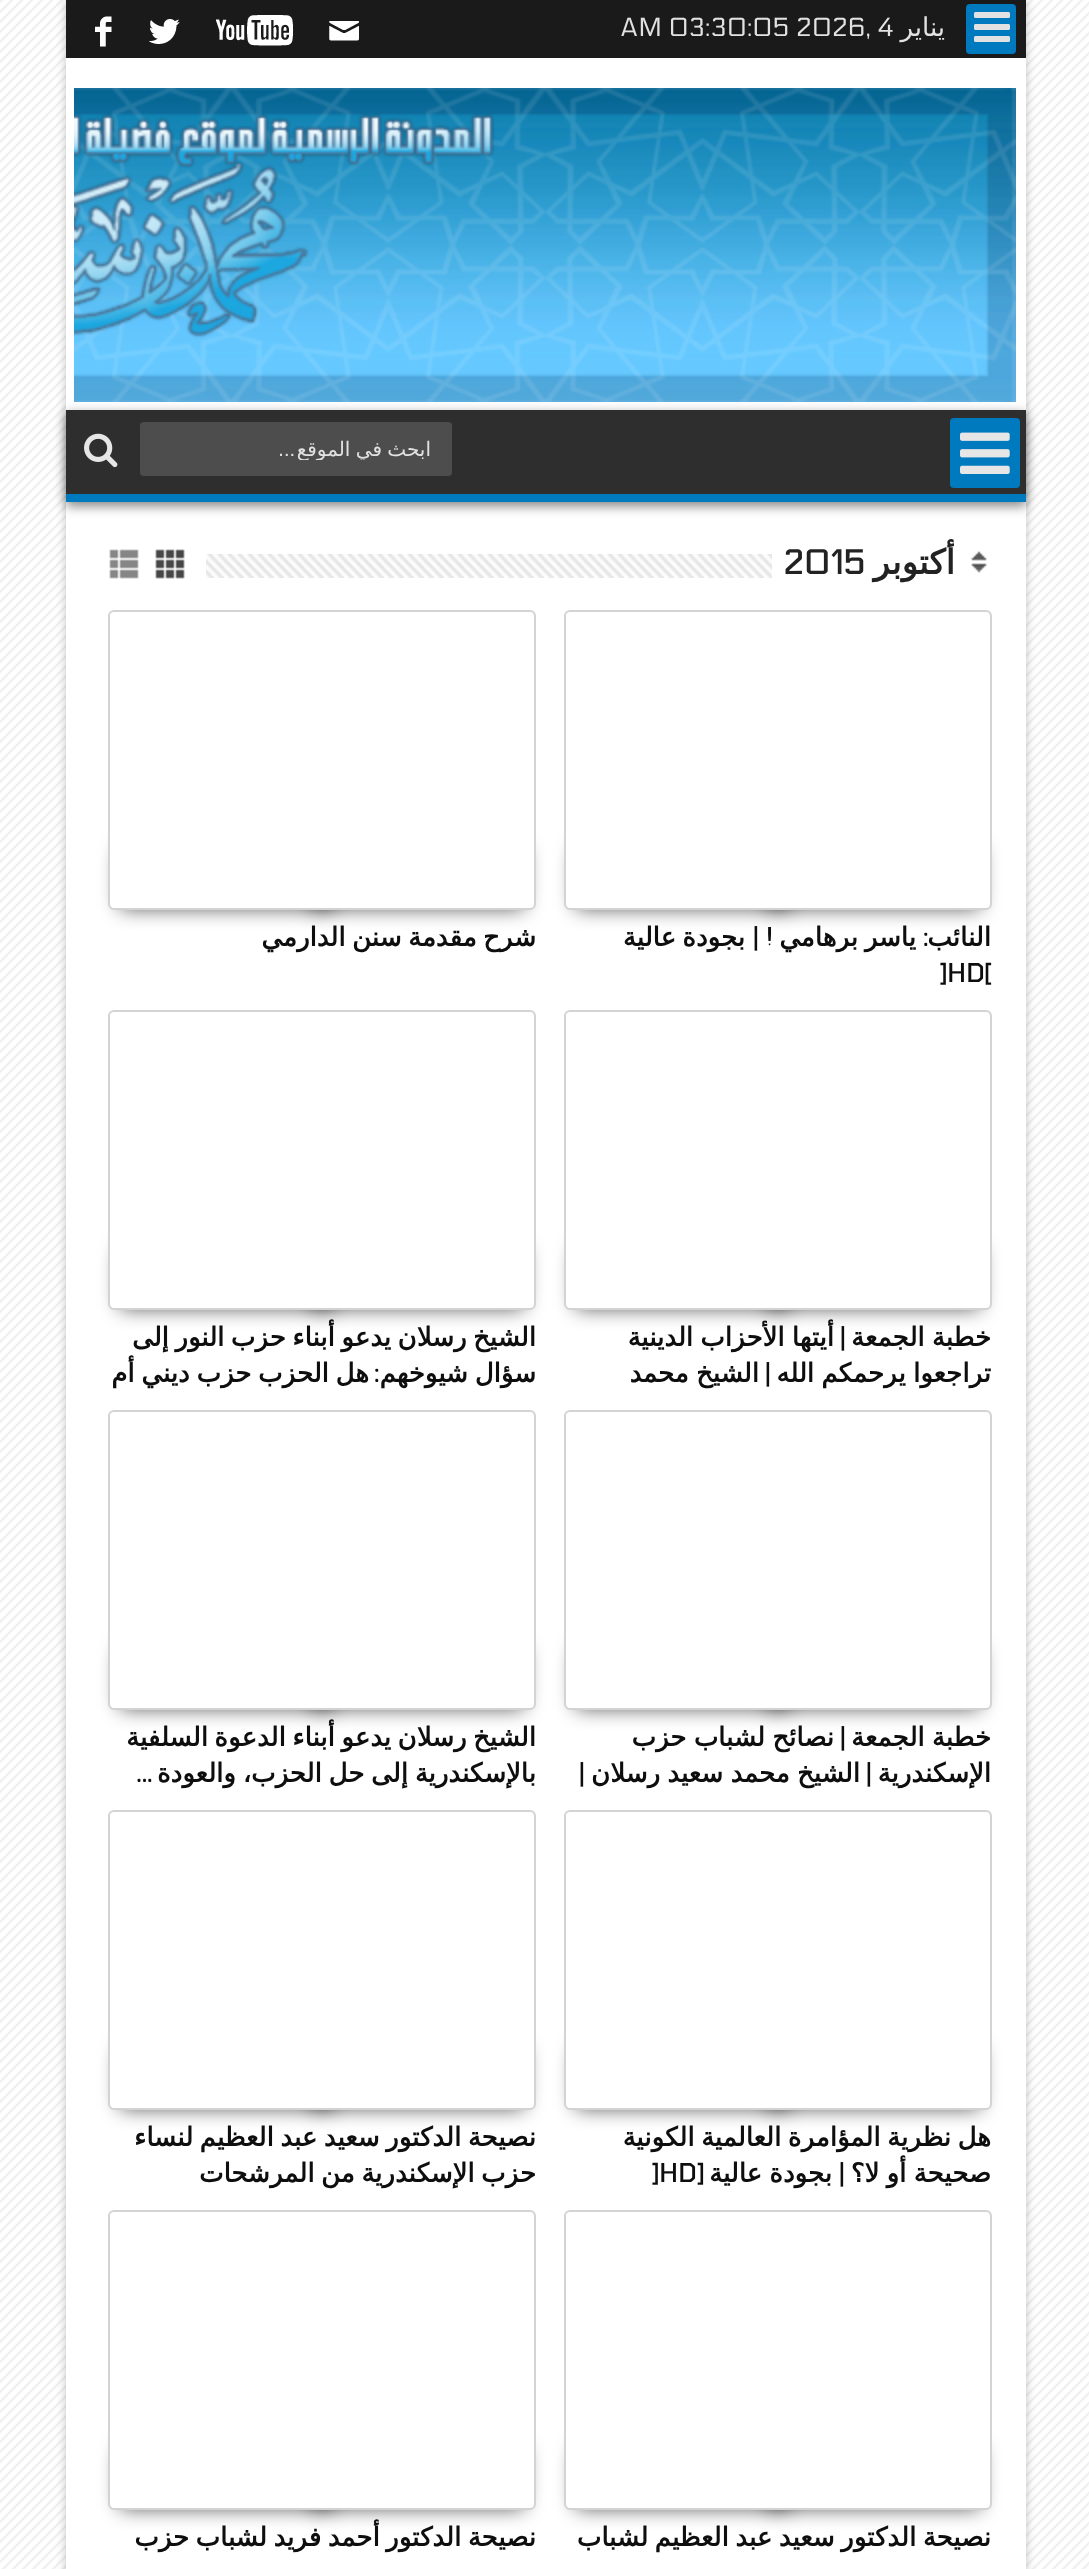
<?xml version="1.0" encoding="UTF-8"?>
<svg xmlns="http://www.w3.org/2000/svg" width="1089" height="2569">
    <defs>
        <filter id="blur1" x="-50%" y="-200%" width="200%" height="500%"><feGaussianBlur stdDeviation="5"/></filter>
        <filter id="blur2" x="-50%" y="-200%" width="200%" height="500%"><feGaussianBlur stdDeviation="6"/></filter>
        <clipPath id="clip1"><rect x="156" y="438" width="280" height="22"/></clipPath>
        <filter id="blur3" x="-50%" y="-200%" width="200%" height="500%"><feGaussianBlur stdDeviation="10"/></filter>
    </defs>
    <rect width="100%" height="100%" fill="#FFFFFF"/>
    <image x="0" y="0" width="1089" height="2569" href="img_01.png"/>
    <rect x="66" y="0" width="960" height="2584" fill="#000000" fill-opacity="0.24" filter="url(#blur1)"/>
    <rect x="66" y="58" width="960" height="2511" fill="#FFFFFF"/>
    <rect x="66" y="0" width="960" height="58" fill="#1A1A1A"/>
    <rect x="966" y="4" width="50" height="50" rx="4" fill="#007ABE"/>
    <image x="974" y="12" width="36" height="30" href="img_02.png"/>
    <text x="945" y="36" font-family="DejaVu Sans" font-size="26" direction="rtl" fill="#E2E2E2">يناير</text>
    <text x="796" y="36" font-family="Electrolize" font-size="26" fill="#E2E2E2">2026, 4</text>
    <text x="620" y="36" font-family="Electrolize" font-size="26" fill="#E2E2E2">AM 03:30:05</text>
    <image x="329" y="21" width="30" height="20" href="img_03.png"/>
    <image x="216" y="15" width="78" height="31" href="img_04.png"/>
    <image x="149" y="19" width="31" height="25" href="img_05.png"/>
    <image x="95" y="16" width="17" height="31" href="img_06.png"/>
    <image x="74" y="88" width="942" height="314" href="img_07.png"/>
    <rect x="66" y="414" width="960" height="92" fill="#000000" fill-opacity="0.49" filter="url(#blur2)"/>
    <rect x="66" y="410" width="960" height="84" fill="#2E2E2E"/>
    <rect x="66" y="494" width="960" height="8" fill="#007ABE"/>
    <rect x="950" y="418" width="70" height="70" rx="4" fill="#007ABE"/>
    <image x="960" y="432" width="50" height="42" href="img_08.png"/>
    <rect x="140" y="422" width="312" height="54" rx="4" fill="#4D4D4D"/>
    <g clip-path="url(#clip1)">
        <text x="431" y="456" word-spacing="-1" font-family="DejaVu Sans" font-size="20" direction="rtl" fill="#E2E2E2">ابحث في الموقع</text>
    </g>
    <text x="295" y="456" font-family="Liberation Sans" font-size="20" direction="rtl" fill="#E2E2E2">...</text>
    <image x="84" y="433" width="34" height="35" href="img_09.png"/>
    <image x="206" y="554" width="566" height="24" href="img_10.png"/>
    <image x="971" y="551" width="16" height="22" href="img_11.png"/>
    <text x="955" y="574" font-family="DejaVu Sans" font-size="34" font-weight="700" direction="rtl" fill="#222222">أكتوبر</text>
    <text x="783" y="574" font-family="Electrolize" font-size="34" font-weight="700" fill="#222222">2015</text>
    <image x="155" y="549" width="30" height="30" href="img_12.png"/>
    <image x="109" y="549" width="30" height="30" href="img_13.png"/>
    <rect x="768" y="848" width="212" height="60" fill="#000000" fill-opacity="0.7" filter="url(#blur3)"/>
    <rect x="576" y="848" width="212" height="60" fill="#000000" fill-opacity="0.7" filter="url(#blur3)"/>
    <rect x="565" y="611" width="426" height="298" rx="5" fill="#FFFFFF" stroke="#D3D3D3" stroke-width="2"/>
    <text x="991" y="946" font-family="DejaVu Sans" font-size="26" font-weight="700" direction="rtl" fill="#0E0E0E">النائب</text>
    <text x="928" y="946" font-family="Electrolize" font-size="26" font-weight="700" direction="rtl" fill="#0E0E0E">:</text>
    <text x="916" y="946" font-family="DejaVu Sans" font-size="26" font-weight="700" direction="rtl" fill="#0E0E0E">ياسر</text>
    <text x="858" y="946" font-family="DejaVu Sans" font-size="26" font-weight="700" direction="rtl" fill="#0E0E0E">برهامي</text>
    <text x="773" y="946" font-family="Electrolize" font-size="26" font-weight="700" direction="rtl" fill="#0E0E0E">! |</text>
    <text x="745" y="946" font-family="DejaVu Sans" font-size="26" font-weight="700" direction="rtl" fill="#0E0E0E">بجودة</text>
    <text x="676" y="946" font-family="DejaVu Sans" font-size="26" font-weight="700" direction="rtl" fill="#0E0E0E">عالية</text>
    <text x="939" y="982" font-family="Electrolize" font-size="26" font-weight="700" fill="#0E0E0E">]HD[</text>
    <rect x="312" y="848" width="212" height="60" fill="#000000" fill-opacity="0.7" filter="url(#blur3)"/>
    <rect x="120" y="848" width="212" height="60" fill="#000000" fill-opacity="0.7" filter="url(#blur3)"/>
    <rect x="109" y="611" width="426" height="298" rx="5" fill="#FFFFFF" stroke="#D3D3D3" stroke-width="2"/>
    <text x="536" y="946" word-spacing="-1.75" font-family="DejaVu Sans" font-size="26" font-weight="700" direction="rtl" fill="#0E0E0E">شرح مقدمة سنن الدارمي</text>
    <rect x="768" y="1248" width="212" height="60" fill="#000000" fill-opacity="0.7" filter="url(#blur3)"/>
    <rect x="576" y="1248" width="212" height="60" fill="#000000" fill-opacity="0.7" filter="url(#blur3)"/>
    <rect x="565" y="1011" width="426" height="298" rx="5" fill="#FFFFFF" stroke="#D3D3D3" stroke-width="2"/>
    <text x="991" y="1346" word-spacing="-1" font-family="DejaVu Sans" font-size="26" font-weight="700" direction="rtl" fill="#0E0E0E">خطبة الجمعة</text>
    <text x="846" y="1346" font-family="Electrolize" font-size="26" font-weight="700" direction="rtl" fill="#0E0E0E">|</text>
    <text x="834" y="1346" word-spacing="-1" font-family="DejaVu Sans" font-size="26" font-weight="700" direction="rtl" fill="#0E0E0E">أيتها الأحزاب الدينية</text>
    <text x="991" y="1382" word-spacing="-1" font-family="DejaVu Sans" font-size="26" font-weight="700" direction="rtl" fill="#0E0E0E">تراجعوا يرحمكم الله</text>
    <text x="771" y="1382" font-family="Electrolize" font-size="26" font-weight="700" direction="rtl" fill="#0E0E0E">|</text>
    <text x="759" y="1382" word-spacing="-1" font-family="DejaVu Sans" font-size="26" font-weight="700" direction="rtl" fill="#0E0E0E">الشيخ محمد</text>
    <rect x="312" y="1248" width="212" height="60" fill="#000000" fill-opacity="0.7" filter="url(#blur3)"/>
    <rect x="120" y="1248" width="212" height="60" fill="#000000" fill-opacity="0.7" filter="url(#blur3)"/>
    <rect x="109" y="1011" width="426" height="298" rx="5" fill="#FFFFFF" stroke="#D3D3D3" stroke-width="2"/>
    <text font-family="DejaVu Sans" font-size="26" font-weight="700" direction="rtl" fill="#0E0E0E">
        <tspan x="536" y="1346" word-spacing="-1.75">الشيخ رسلان يدعو أبناء حزب النور إلى</tspan>
        <tspan x="536" y="1382" word-spacing="-1.5">سؤال شيوخهم</tspan>
    </text>
    <text x="379" y="1382" font-family="Electrolize" font-size="26" font-weight="700" direction="rtl" fill="#0E0E0E">:</text>
    <text x="369" y="1382" word-spacing="-1.5" font-family="DejaVu Sans" font-size="26" font-weight="700" direction="rtl" fill="#0E0E0E">هل الحزب حزب ديني أم</text>
    <rect x="768" y="1648" width="212" height="60" fill="#000000" fill-opacity="0.7" filter="url(#blur3)"/>
    <rect x="576" y="1648" width="212" height="60" fill="#000000" fill-opacity="0.7" filter="url(#blur3)"/>
    <rect x="565" y="1411" width="426" height="298" rx="5" fill="#FFFFFF" stroke="#D3D3D3" stroke-width="2"/>
    <text x="991" y="1746" word-spacing="-1" font-family="DejaVu Sans" font-size="26" font-weight="700" direction="rtl" fill="#0E0E0E">خطبة الجمعة</text>
    <text x="846" y="1746" font-family="Electrolize" font-size="26" font-weight="700" direction="rtl" fill="#0E0E0E">|</text>
    <text x="834" y="1746" word-spacing="-1" font-family="DejaVu Sans" font-size="26" font-weight="700" direction="rtl" fill="#0E0E0E">نصائح لشباب حزب</text>
    <text x="991" y="1782" font-family="DejaVu Sans" font-size="26" font-weight="700" direction="rtl" fill="#0E0E0E">الإسكندرية</text>
    <text x="872" y="1782" font-family="Electrolize" font-size="26" font-weight="700" direction="rtl" fill="#0E0E0E">|</text>
    <text x="860" y="1782" word-spacing="-1" font-family="DejaVu Sans" font-size="26" font-weight="700" direction="rtl" fill="#0E0E0E">الشيخ محمد سعيد رسلان</text>
    <text x="585" y="1782" font-family="Electrolize" font-size="26" font-weight="700" direction="rtl" fill="#0E0E0E">|</text>
    <rect x="312" y="1648" width="212" height="60" fill="#000000" fill-opacity="0.7" filter="url(#blur3)"/>
    <rect x="120" y="1648" width="212" height="60" fill="#000000" fill-opacity="0.7" filter="url(#blur3)"/>
    <rect x="109" y="1411" width="426" height="298" rx="5" fill="#FFFFFF" stroke="#D3D3D3" stroke-width="2"/>
    <text font-family="DejaVu Sans" font-size="26" font-weight="700" direction="rtl" fill="#0E0E0E">
        <tspan x="536" y="1746" word-spacing="-1.75">الشيخ رسلان يدعو أبناء الدعوة السلفية</tspan>
        <tspan x="536" y="1782" word-spacing="-1.5">بالإسكندرية إلى حل الحزب، والعودة</tspan>
    </text>
    <text x="152" y="1782" font-family="Electrolize" font-size="26" font-weight="700" direction="rtl" fill="#0E0E0E">...</text>
    <rect x="768" y="2048" width="212" height="60" fill="#000000" fill-opacity="0.7" filter="url(#blur3)"/>
    <rect x="576" y="2048" width="212" height="60" fill="#000000" fill-opacity="0.7" filter="url(#blur3)"/>
    <rect x="565" y="1811" width="426" height="298" rx="5" fill="#FFFFFF" stroke="#D3D3D3" stroke-width="2"/>
    <text font-family="DejaVu Sans" font-size="26" font-weight="700" direction="rtl" fill="#0E0E0E">
        <tspan x="991" y="2146" word-spacing="-1.75">هل نظرية المؤامرة العالمية الكونية</tspan>
        <tspan x="991" y="2182" word-spacing="-1">صحيحة أو لا؟</tspan>
    </text>
    <text x="845" y="2182" font-family="Electrolize" font-size="26" font-weight="700" direction="rtl" fill="#0E0E0E">|</text>
    <text x="832" y="2182" word-spacing="-1" font-family="DejaVu Sans" font-size="26" font-weight="700" direction="rtl" fill="#0E0E0E">بجودة عالية</text>
    <text x="704" y="2182" font-family="Electrolize" font-size="26" font-weight="700" direction="rtl" fill="#0E0E0E">[</text>
    <text x="651" y="2182" font-family="Electrolize" font-size="26" font-weight="700" fill="#0E0E0E">]HD</text>
    <rect x="312" y="2048" width="212" height="60" fill="#000000" fill-opacity="0.7" filter="url(#blur3)"/>
    <rect x="120" y="2048" width="212" height="60" fill="#000000" fill-opacity="0.7" filter="url(#blur3)"/>
    <rect x="109" y="1811" width="426" height="298" rx="5" fill="#FFFFFF" stroke="#D3D3D3" stroke-width="2"/>
    <text font-family="DejaVu Sans" font-size="26" font-weight="700" direction="rtl" fill="#0E0E0E">
        <tspan x="536" y="2146" word-spacing="-1.75">نصيحة الدكتور سعيد عبد العظيم لنساء</tspan>
        <tspan x="536" y="2182" word-spacing="-1.75">حزب الإسكندرية من المرشحات</tspan>
    </text>
    <rect x="768" y="2448" width="212" height="60" fill="#000000" fill-opacity="0.7" filter="url(#blur3)"/>
    <rect x="576" y="2448" width="212" height="60" fill="#000000" fill-opacity="0.7" filter="url(#blur3)"/>
    <rect x="565" y="2211" width="426" height="298" rx="5" fill="#FFFFFF" stroke="#D3D3D3" stroke-width="2"/>
    <text x="991" y="2546" word-spacing="-1.75" font-family="DejaVu Sans" font-size="26" font-weight="700" direction="rtl" fill="#0E0E0E">نصيحة الدكتور سعيد عبد العظيم لشباب</text>
    <rect x="312" y="2448" width="212" height="60" fill="#000000" fill-opacity="0.7" filter="url(#blur3)"/>
    <rect x="120" y="2448" width="212" height="60" fill="#000000" fill-opacity="0.7" filter="url(#blur3)"/>
    <rect x="109" y="2211" width="426" height="298" rx="5" fill="#FFFFFF" stroke="#D3D3D3" stroke-width="2"/>
    <text x="536" y="2546" word-spacing="-1.75" font-family="DejaVu Sans" font-size="26" font-weight="700" direction="rtl" fill="#0E0E0E">نصيحة الدكتور أحمد فريد لشباب حزب</text>
</svg>
